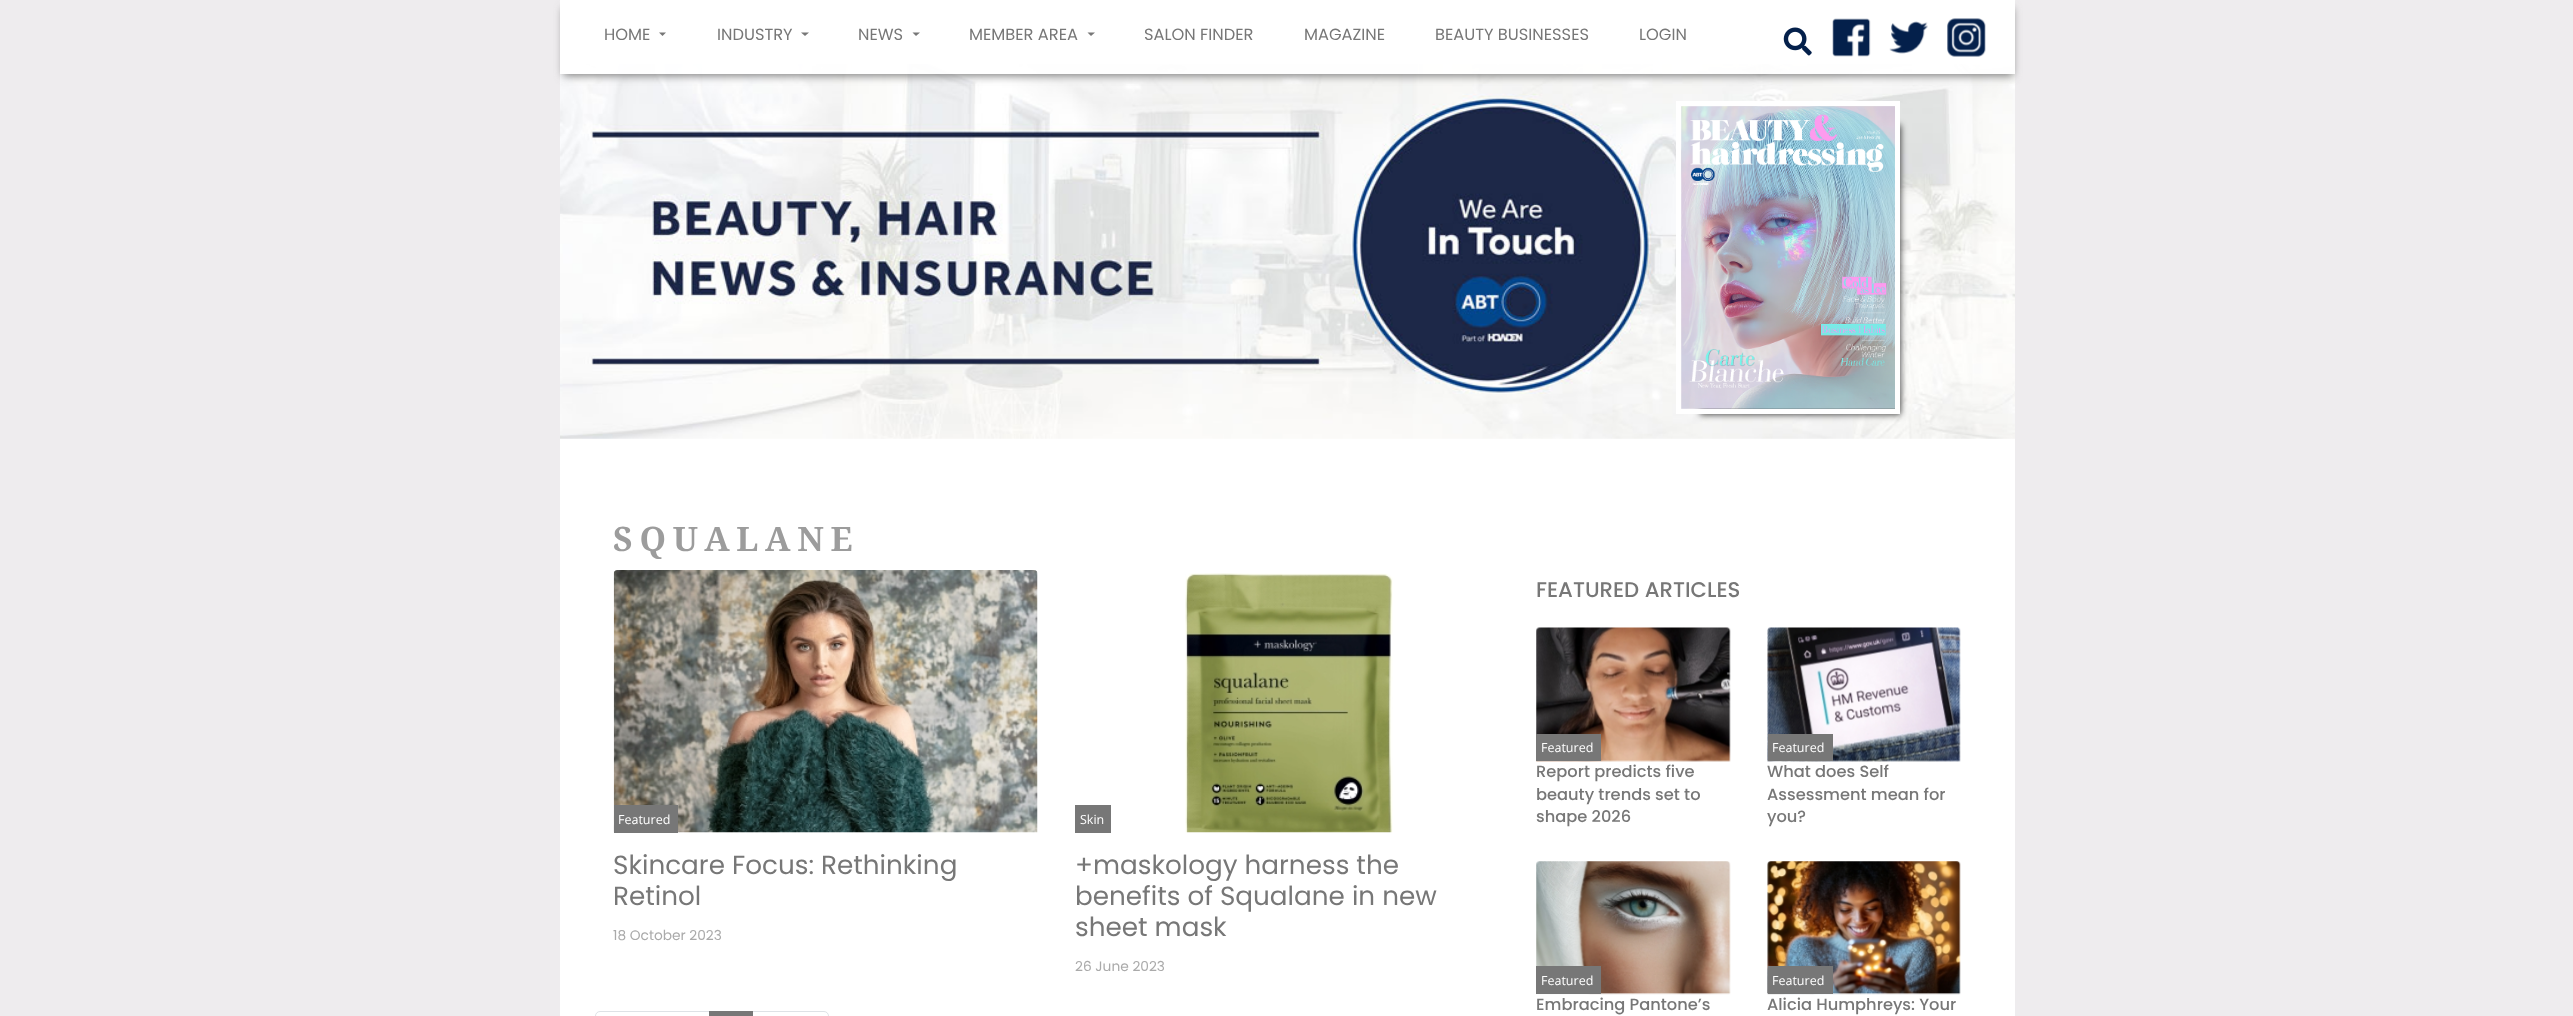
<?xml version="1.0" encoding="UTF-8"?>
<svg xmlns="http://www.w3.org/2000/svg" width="2573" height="1016">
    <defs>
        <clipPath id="clip1"><path d="M 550 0 H 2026 V 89 H 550 Z M 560 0 H 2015 V 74 H 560 Z" clip-rule="evenodd"/></clipPath>
        <filter id="blur1" x="-50%" y="-200%" width="200%" height="500%"><feGaussianBlur stdDeviation="4"/></filter>
        <filter id="blur2" x="-50%" y="-200%" width="200%" height="500%"><feGaussianBlur stdDeviation="3"/></filter>
    </defs>
    <rect width="100%" height="100%" fill="#EEECEE"/>
    <rect x="560" y="0" width="1455" height="1016" fill="#FFFFFF"/>
    <image x="560" y="63" width="1455" height="376" href="img_05.png"/>
    <g clip-path="url(#clip1)">
        <rect x="563" y="8" width="1450" height="68" fill="#808080" filter="url(#blur1)"/>
    </g>
    <rect x="560" y="63" width="1455" height="11" fill="#FFFFFF" fill-opacity="0.9"/>
    <text x="604" y="40" font-family="Poppins" font-size="16.25" fill="#777777">HOME</text>
    <path d="M 659 32.5 H 666 L 662.5 36 Z" fill="#777777"/>
    <text x="717" y="40" font-family="Poppins" font-size="16.25" fill="#777777">INDUSTRY</text>
    <path d="M 801 32.5 H 809 L 805 36 Z" fill="#777777"/>
    <text x="858" y="40" font-family="Poppins" font-size="16.25" fill="#777777">NEWS</text>
    <path d="M 912.5 32.5 H 920 L 916 36 Z" fill="#777777"/>
    <text x="969" y="40" font-family="Poppins" font-size="16.25" fill="#777777">MEMBER AREA</text>
    <path d="M 1087.5 32.5 H 1095 L 1091 36 Z" fill="#777777"/>
    <text x="1144" y="40" font-family="Poppins" font-size="16.25" fill="#777777">SALON FINDER</text>
    <text x="1304" y="40" font-family="Poppins" font-size="16.25" fill="#777777">MAGAZINE</text>
    <text x="1435" y="40" font-family="Poppins" font-size="16.25" fill="#777777">BEAUTY BUSINESSES</text>
    <text x="1639" y="40" font-family="Poppins" font-size="16.25" fill="#777777">LOGIN</text>
    <image x="1783" y="27" width="29" height="29" href="img_01.png"/>
    <image x="1832" y="18" width="39" height="39" href="img_02.png"/>
    <image x="1889" y="21" width="39" height="33" href="img_03.png"/>
    <image x="1947" y="18" width="39" height="39" href="img_04.png"/>
    <rect x="1700" y="125" width="201" height="290" fill="#000000" fill-opacity="0.68" filter="url(#blur2)"/>
    <rect x="1678.5" y="103.5" width="219" height="308" fill="none" stroke="#FFFFFF" stroke-width="5"/>
    <image x="1681" y="106" width="214" height="303" href="img_06.png"/>
    <text x="613" y="551" font-family="Droid Serif" font-size="33.75" font-weight="700" letter-spacing="6.75" fill="#9C9C9C">SQUALANE</text>
    <image x="613" y="570" width="425" height="263" href="img_07.png"/>
    <rect x="614" y="805" width="64" height="28" fill="#777777"/>
    <text x="618" y="824" font-family="Open Sans" font-size="12.5" fill="#FFFFFF">Featured</text>
    <text font-family="Poppins" font-size="26.25" fill="#777777">
        <tspan x="613" y="874">Skincare Focus: Rethinking</tspan>
        <tspan x="613" y="905">Retinol</tspan>
    </text>
    <text x="613" y="940" font-family="Poppins" font-size="13.75" fill="#AAAAAA">18 October 2023</text>
    <rect x="1075" y="805" width="36" height="28" fill="#777777"/>
    <text x="1080" y="824" font-family="Open Sans" font-size="12.5" fill="#FFFFFF">Skin</text>
    <image x="1185" y="573" width="208" height="260" href="img_08.png"/>
    <text font-family="Poppins" font-size="26.25" fill="#777777">
        <tspan x="1075" y="874">+maskology harness the</tspan>
        <tspan x="1075" y="905">benefits of Squalane in new</tspan>
        <tspan x="1075" y="936">sheet mask</tspan>
    </text>
    <text x="1075" y="971" font-family="Poppins" font-size="13.75" fill="#AAAAAA">26 June 2023</text>
    <path d="M 600 1011.5 H 709.5 V 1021.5 H 600 C 597.5 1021.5 595.5 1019.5 595.5 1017 V 1016 C 595.5 1013.5 597.5 1011.5 600 1011.5 Z" fill="none" stroke="#DEE2E6"/>
    <path d="M 751.5 1011.5 H 824 C 826.5 1011.5 828.5 1013.5 828.5 1016 V 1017 C 828.5 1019.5 826.5 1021.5 824 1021.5 H 751.5 Z" fill="none" stroke="#DEE2E6"/>
    <rect x="709" y="1011" width="44" height="5" fill="#777777"/>
    <text x="1536" y="597" font-family="Poppins" font-size="21.25" font-weight="500" fill="#777777">FEATURED ARTICLES</text>
    <image x="1536" y="627" width="195" height="135" href="img_09.png"/>
    <rect x="1536" y="734" width="65" height="27" fill="#777777"/>
    <text x="1541" y="752" font-family="Open Sans" font-size="12.5" fill="#FFFFFF">Featured</text>
    <text font-family="Poppins" font-size="16.25" font-weight="500" fill="#777777">
        <tspan x="1536" y="777">Report predicts five</tspan>
        <tspan x="1536" y="800">beauty trends set to</tspan>
        <tspan x="1536" y="822">shape 2026</tspan>
    </text>
    <image x="1767" y="627" width="194" height="135" href="img_10.png"/>
    <rect x="1768" y="734" width="65" height="27" fill="#777777"/>
    <text x="1772" y="752" font-family="Open Sans" font-size="12.5" fill="#FFFFFF">Featured</text>
    <text font-family="Poppins" font-size="16.25" font-weight="500" fill="#777777">
        <tspan x="1767" y="777">What does Self</tspan>
        <tspan x="1767" y="800">Assessment mean for</tspan>
        <tspan x="1767" y="822">you?</tspan>
    </text>
    <image x="1536" y="861" width="195" height="134" href="img_11.png"/>
    <rect x="1536" y="966" width="65" height="28" fill="#777777"/>
    <text x="1541" y="985" font-family="Open Sans" font-size="12.5" fill="#FFFFFF">Featured</text>
    <text x="1536" y="1010" font-family="Poppins" font-size="16.25" font-weight="500" fill="#777777">Embracing Pantone’s</text>
    <image x="1767" y="861" width="194" height="134" href="img_12.png"/>
    <rect x="1768" y="966" width="65" height="28" fill="#777777"/>
    <text x="1772" y="985" font-family="Open Sans" font-size="12.5" fill="#FFFFFF">Featured</text>
    <text x="1767" y="1010" font-family="Poppins" font-size="16.25" font-weight="500" fill="#777777">Alicia Humphreys: Your</text>
</svg>
